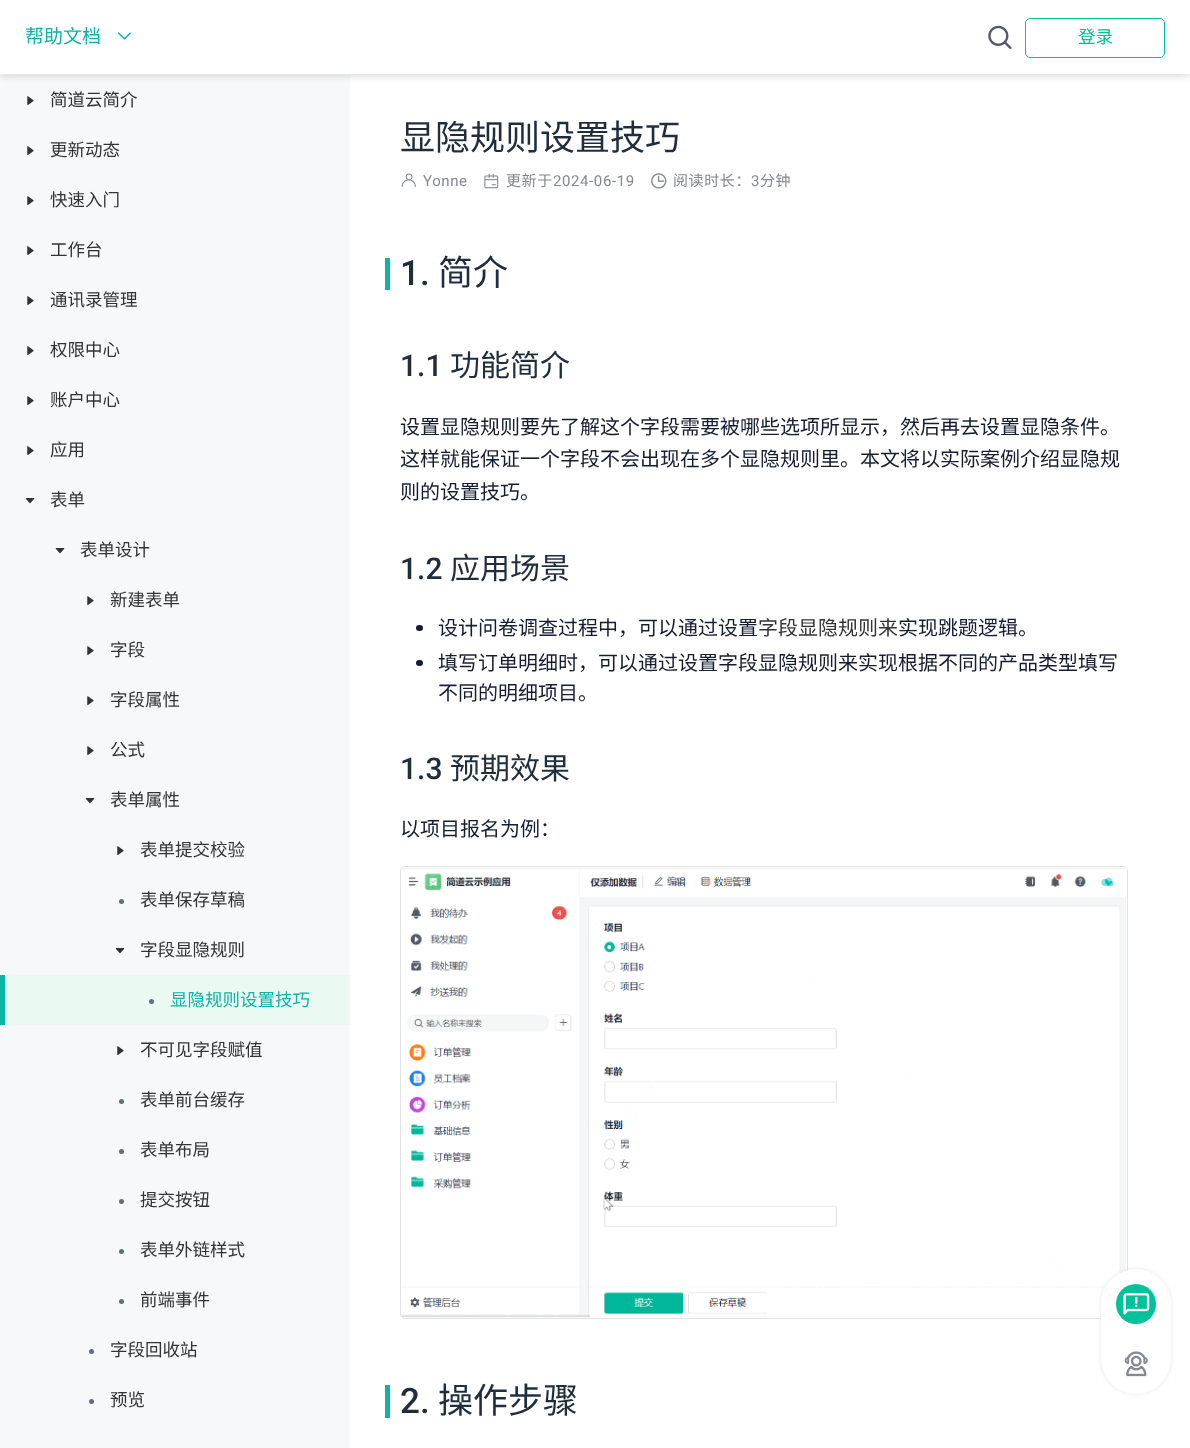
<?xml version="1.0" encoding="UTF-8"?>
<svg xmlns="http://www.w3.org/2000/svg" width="1190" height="1448">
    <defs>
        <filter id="blur1" x="-50%" y="-200%" width="200%" height="500%"><feGaussianBlur stdDeviation="5"/></filter>
        <filter id="blur2" x="-50%" y="-200%" width="200%" height="500%"><feGaussianBlur stdDeviation="2"/></filter>
    </defs>
    <rect width="100%" height="100%" fill="#FFFFFF"/>
    <rect x="0" y="75" width="350" height="1373" fill="#F7F8FA"/>
    <rect x="0" y="0" width="1190" height="75" fill="#141E31" fill-opacity="0.1" filter="url(#blur1)"/>
    <rect x="0" y="0" width="1190" height="74" fill="#141E31" fill-opacity="0.1" filter="url(#blur1)"/>
    <rect x="0" y="0" width="1190" height="74" fill="#FFFFFF"/>
    <text x="25" y="43" font-family="Noto Sans CJK SC" font-size="19" fill="#0DB3A6">帮助文档</text>
    <image x="117" y="32" width="14" height="8" href="img_01.png"/>
    <image x="988" y="25" width="24" height="24" href="img_02.png"/>
    <rect x="1025.5" y="18.5" width="139" height="39" rx="4.5" fill="none" stroke="#00C29A"/>
    <text x="1078" y="43" font-family="Noto Sans CJK SC" font-size="17.5" fill="#00C29A">登录</text>
    <image x="27" y="96" width="7" height="10" href="img_03.png"/>
    <text x="50" y="106" font-family="Noto Sans CJK SC" font-size="17.5" fill="#333333">简道云简介</text>
    <image x="27" y="146" width="7" height="10" href="img_03.png"/>
    <text x="50" y="156" font-family="Noto Sans CJK SC" font-size="17.5" fill="#333333">更新动态</text>
    <image x="27" y="196" width="7" height="10" href="img_03.png"/>
    <text x="50" y="206" font-family="Noto Sans CJK SC" font-size="17.5" fill="#333333">快速入门</text>
    <image x="27" y="246" width="7" height="10" href="img_03.png"/>
    <text x="50" y="256" font-family="Noto Sans CJK SC" font-size="17.5" fill="#333333">工作台</text>
    <image x="27" y="296" width="7" height="10" href="img_03.png"/>
    <text x="50" y="306" font-family="Noto Sans CJK SC" font-size="17.5" fill="#333333">通讯录管理</text>
    <image x="27" y="346" width="7" height="10" href="img_03.png"/>
    <text x="50" y="356" font-family="Noto Sans CJK SC" font-size="17.5" fill="#333333">权限中心</text>
    <image x="27" y="396" width="7" height="10" href="img_03.png"/>
    <text x="50" y="406" font-family="Noto Sans CJK SC" font-size="17.5" fill="#333333">账户中心</text>
    <image x="27" y="446" width="7" height="10" href="img_03.png"/>
    <text x="50" y="456" font-family="Noto Sans CJK SC" font-size="17.5" fill="#333333">应用</text>
    <image x="25" y="498" width="10" height="6" href="img_04.png"/>
    <text x="50" y="506" font-family="Noto Sans CJK SC" font-size="17.5" fill="#333333">表单</text>
    <image x="55" y="548" width="10" height="6" href="img_04.png"/>
    <text x="80" y="556" font-family="Noto Sans CJK SC" font-size="17.5" fill="#333333">表单设计</text>
    <image x="87" y="596" width="7" height="10" href="img_03.png"/>
    <text x="110" y="606" font-family="Noto Sans CJK SC" font-size="17.5" fill="#333333">新建表单</text>
    <image x="87" y="646" width="7" height="10" href="img_03.png"/>
    <text x="110" y="656" font-family="Noto Sans CJK SC" font-size="17.5" fill="#333333">字段</text>
    <image x="87" y="696" width="7" height="10" href="img_03.png"/>
    <text x="110" y="706" font-family="Noto Sans CJK SC" font-size="17.5" fill="#333333">字段属性</text>
    <image x="87" y="746" width="7" height="10" href="img_03.png"/>
    <text x="110" y="756" font-family="Noto Sans CJK SC" font-size="17.5" fill="#333333">公式</text>
    <image x="85" y="798" width="10" height="6" href="img_04.png"/>
    <text x="110" y="806" font-family="Noto Sans CJK SC" font-size="17.5" fill="#333333">表单属性</text>
    <image x="117" y="846" width="7" height="10" href="img_03.png"/>
    <text x="140" y="856" font-family="Noto Sans CJK SC" font-size="17.5" fill="#333333">表单提交校验</text>
    <circle cx="121.5" cy="901.5" r="2.5" fill="#5E6D82"/>
    <text x="140" y="906" font-family="Noto Sans CJK SC" font-size="17.5" fill="#333333">表单保存草稿</text>
    <image x="115" y="948" width="10" height="6" href="img_04.png"/>
    <text x="140" y="956" font-family="Noto Sans CJK SC" font-size="17.5" fill="#333333">字段显隐规则</text>
    <rect x="5" y="975" width="345" height="50" fill="#EAFAF3"/>
    <rect x="0" y="975" width="5" height="50" fill="#0DB3A6"/>
    <circle cx="151.5" cy="1001.5" r="2.5" fill="#5E6D82"/>
    <text x="170" y="1006" font-family="Noto Sans CJK SC" font-size="17.5" fill="#0DB3A6">显隐规则设置技巧</text>
    <image x="117" y="1046" width="7" height="10" href="img_03.png"/>
    <text x="140" y="1056" font-family="Noto Sans CJK SC" font-size="17.5" fill="#333333">不可见字段赋值</text>
    <circle cx="121.5" cy="1101.5" r="2.5" fill="#5E6D82"/>
    <text x="140" y="1106" font-family="Noto Sans CJK SC" font-size="17.5" fill="#333333">表单前台缓存</text>
    <circle cx="121.5" cy="1151.5" r="2.5" fill="#5E6D82"/>
    <text x="140" y="1156" font-family="Noto Sans CJK SC" font-size="17.5" fill="#333333">表单布局</text>
    <circle cx="121.5" cy="1201.5" r="2.5" fill="#5E6D82"/>
    <text x="140" y="1206" font-family="Noto Sans CJK SC" font-size="17.5" fill="#333333">提交按钮</text>
    <circle cx="121.5" cy="1251.5" r="2.5" fill="#5E6D82"/>
    <text x="140" y="1256" font-family="Noto Sans CJK SC" font-size="17.5" fill="#333333">表单外链样式</text>
    <circle cx="121.5" cy="1301.5" r="2.5" fill="#5E6D82"/>
    <text x="140" y="1306" font-family="Noto Sans CJK SC" font-size="17.5" fill="#333333">前端事件</text>
    <circle cx="91.5" cy="1351.5" r="2.5" fill="#5E6D82"/>
    <text x="110" y="1356" font-family="Noto Sans CJK SC" font-size="17.5" fill="#333333">字段回收站</text>
    <circle cx="91.5" cy="1401.5" r="2.5" fill="#5E6D82"/>
    <text x="110" y="1406" font-family="Noto Sans CJK SC" font-size="17.5" fill="#333333">预览</text>
    <text x="400" y="150" font-family="Noto Sans CJK SC" font-size="35" fill="#1F2D3D">显隐规则设置技巧</text>
    <image x="401" y="173" width="15" height="14" href="img_05.png"/>
    <text x="423" y="186" font-family="Roboto" font-size="15" letter-spacing="0.6" fill="#838892">Yonne</text>
    <image x="484" y="173" width="15" height="16" href="img_06.png"/>
    <text x="506" y="186" font-family="Noto Sans CJK SC" font-size="15" letter-spacing="0.6" fill="#838892">更新于</text>
    <text x="553" y="186" font-family="Roboto" font-size="15" letter-spacing="0.6" fill="#838892">2024-06-19</text>
    <image x="651" y="173" width="16" height="16" href="img_07.png"/>
    <text x="673" y="186" font-family="Noto Sans CJK SC" font-size="15" letter-spacing="0.6" fill="#838892">阅读时长：</text>
    <text x="751" y="186" font-family="Roboto" font-size="15" letter-spacing="0.6" fill="#838892">3</text>
    <text x="760" y="186" font-family="Noto Sans CJK SC" font-size="15" letter-spacing="0.6" fill="#838892">分钟</text>
    <rect x="385" y="258" width="5" height="32" fill="#0DB3A6"/>
    <text x="400" y="285" font-family="Roboto" font-size="35" font-weight="500" fill="#1F2D3D">1.</text>
    <text x="438" y="285" font-family="Noto Sans CJK SC" font-size="35" fill="#1F2D3D">简介</text>
    <text x="400" y="376" font-family="Roboto" font-size="30" font-weight="500" fill="#1F2D3D">1.1</text>
    <text x="450" y="376" font-family="Noto Sans CJK SC" font-size="30" fill="#1F2D3D">功能简介</text>
    <text font-family="Noto Sans CJK SC" font-size="20" fill="#141E31">
        <tspan x="400" y="434">设置显隐规则要先了解这个字段需要被哪些选项所显示，然后再去设置显隐条件。</tspan>
        <tspan x="400" y="466">这样就能保证一个字段不会出现在多个显隐规则里。本文将以实际案例介绍显隐规</tspan>
        <tspan x="400" y="499">则的设置技巧。</tspan>
    </text>
    <text x="400" y="579" font-family="Roboto" font-size="30" font-weight="500" fill="#1F2D3D">1.2</text>
    <text x="450" y="579" font-family="Noto Sans CJK SC" font-size="30" fill="#1F2D3D">应用场景</text>
    <rect x="416" y="625" width="7" height="6" rx="3" fill="#141E31"/>
    <text x="438" y="635" font-family="Noto Sans CJK SC" font-size="20" fill="#141E31">设计问卷调查过程中，可以通过设置</text>
    <text x="758" y="635" font-family="Noto Sans CJK SC" font-size="20" fill="#333333">字段显隐规则来</text>
    <text x="898" y="635" font-family="Noto Sans CJK SC" font-size="20" fill="#141E31">实现跳题逻辑。</text>
    <rect x="416" y="660" width="7" height="6" rx="3" fill="#141E31"/>
    <text font-family="Noto Sans CJK SC" font-size="20" fill="#141E31">
        <tspan x="438" y="670">填写订单明细时，可以通过设置字段显隐规则来实现根据不同的产品类型填写</tspan>
        <tspan x="438" y="700">不同的明细项目。</tspan>
    </text>
    <text x="400" y="779" font-family="Roboto" font-size="30" font-weight="500" fill="#1F2D3D">1.3</text>
    <text x="450" y="779" font-family="Noto Sans CJK SC" font-size="30" fill="#1F2D3D">预期效果</text>
    <text x="400" y="836" font-family="Noto Sans CJK SC" font-size="20" fill="#141E31">以项目报名为例：</text>
    <rect x="400.5" y="866.5" width="727" height="452" rx="4.5" fill="none" stroke="#E1E3E5"/>
    <image x="401" y="867" width="725" height="451" href="img_08.png"/>
    <rect x="385" y="1385" width="5" height="33" fill="#0DB3A6"/>
    <text x="400" y="1413" font-family="Roboto" font-size="35" font-weight="500" fill="#1F2D3D">2.</text>
    <text x="438" y="1413" font-family="Noto Sans CJK SC" font-size="35" fill="#1F2D3D">操作步骤</text>
    <rect x="1101" y="1269" width="70" height="125" rx="35" fill="#000000" fill-opacity="0.1" filter="url(#blur2)"/>
    <rect x="1101" y="1269" width="70" height="125" rx="35" fill="#FFFFFF"/>
    <circle cx="1136" cy="1304" r="20" fill="#00C29A"/>
    <image x="1123" y="1293" width="27" height="22" href="img_09.png"/>
    <image x="1124" y="1351" width="24" height="26" href="img_10.png"/>
</svg>
